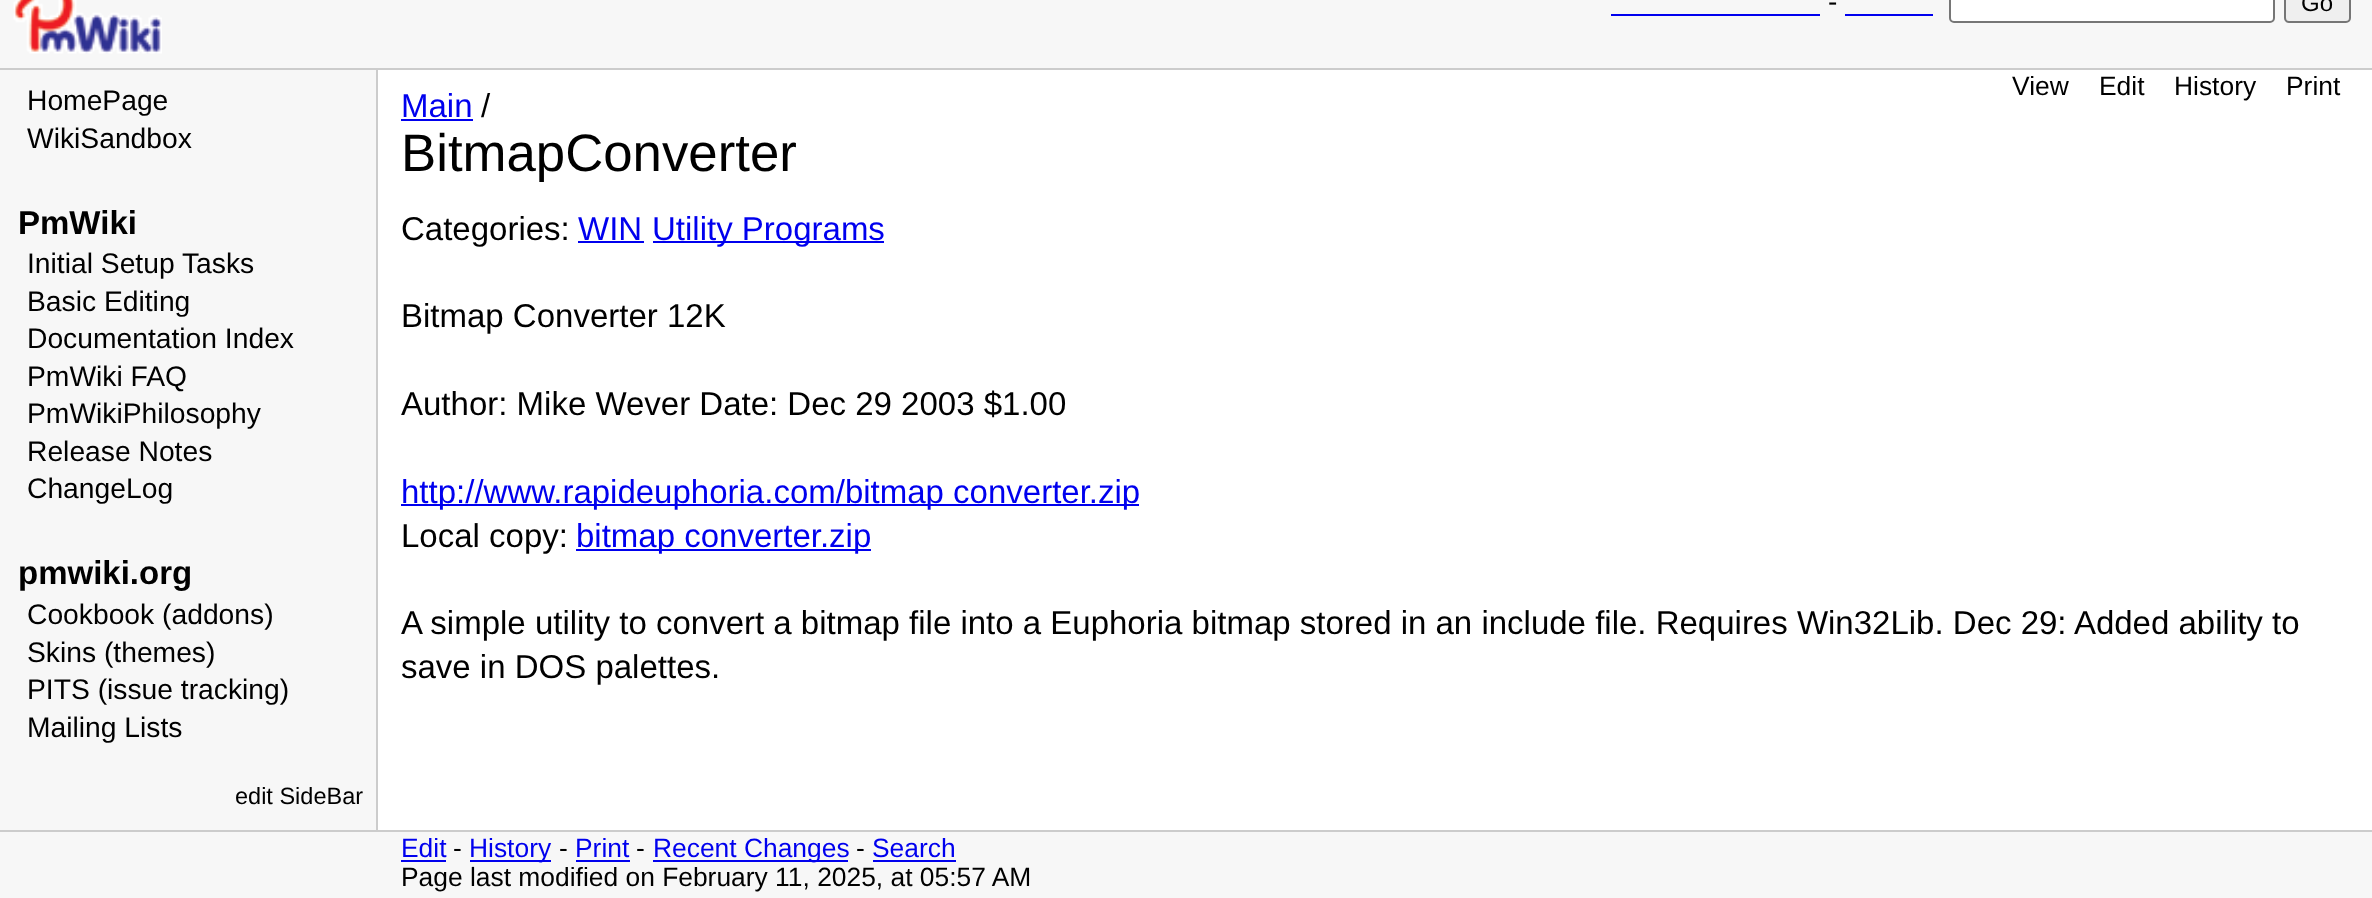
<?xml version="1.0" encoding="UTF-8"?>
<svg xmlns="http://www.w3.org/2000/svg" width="2372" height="898">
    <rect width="100%" height="100%" fill="#F7F7F7"/>
    <rect x="0" y="68" width="2372" height="2" fill="#CCCCCC"/>
    <image x="13" y="0" width="149" height="54" href="img_01.png"/>
    <text x="1828" y="11" font-family="Liberation Sans" font-size="28" fill="#000000">-</text>
    <rect x="1611" y="14" width="209" height="2" fill="#0000EE"/>
    <rect x="1950" y="-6" width="324" height="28" rx="4" fill="#FFFFFF" stroke="#767676" stroke-width="2"/>
    <rect x="2285" y="-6" width="65" height="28" rx="4" fill="#EFEFEF" stroke="#767676" stroke-width="2"/>
    <text x="2301" y="11" font-family="Liberation Sans" font-size="24" fill="#000000">Go</text>
    <rect x="1845" y="14" width="88" height="2" fill="#0000EE"/>
    <rect x="376" y="70" width="2" height="760" fill="#CCCCCC"/>
    <text font-family="Liberation Sans" font-size="28.25" fill="#000000">
        <tspan x="27" y="110">HomePage</tspan>
        <tspan x="27" y="148">WikiSandbox</tspan>
    </text>
    <text x="18" y="234" font-family="Liberation Sans" font-size="33" font-weight="700" fill="#000000">PmWiki</text>
    <text font-family="Liberation Sans" font-size="28.25" fill="#000000">
        <tspan x="27" y="273">Initial Setup Tasks</tspan>
        <tspan x="27" y="311">Basic Editing</tspan>
        <tspan x="27" y="348">Documentation Index</tspan>
        <tspan x="27" y="386">PmWiki FAQ</tspan>
        <tspan x="27" y="423">PmWikiPhilosophy</tspan>
        <tspan x="27" y="461">Release Notes</tspan>
        <tspan x="27" y="498">ChangeLog</tspan>
    </text>
    <text x="18" y="584" font-family="Liberation Sans" font-size="33" font-weight="700" fill="#000000">pmwiki.org</text>
    <text font-family="Liberation Sans" font-size="28.25" fill="#000000">
        <tspan x="27" y="624">Cookbook (addons)</tspan>
        <tspan x="27" y="662">Skins (themes)</tspan>
        <tspan x="27" y="699">PITS (issue tracking)</tspan>
        <tspan x="27" y="737">Mailing Lists</tspan>
    </text>
    <text x="235" y="804" font-family="Liberation Sans" font-size="23.5" fill="#000000">edit SideBar</text>
    <rect x="378" y="70" width="1994" height="760" fill="#FFFFFF"/>
    <text x="2012" y="95" font-family="Liberation Sans" font-size="26.4" fill="#000000">View</text>
    <text x="2099" y="95" font-family="Liberation Sans" font-size="26.4" fill="#000000">Edit</text>
    <text x="2174" y="95" font-family="Liberation Sans" font-size="26.4" fill="#000000">History</text>
    <text x="2286" y="95" font-family="Liberation Sans" font-size="26.4" fill="#000000">Print</text>
    <text x="401" y="117" font-family="Liberation Sans" font-size="33" fill="#0000EE">Main</text>
    <rect x="401" y="119" width="72" height="2" fill="#0000EE"/>
    <text x="481" y="117" font-family="Liberation Sans" font-size="33" fill="#000000">/</text>
    <text x="401" y="171" font-family="Liberation Sans" font-size="52.75" fill="#000000">BitmapConverter</text>
    <text x="401" y="240" font-family="Liberation Sans" font-size="33" fill="#000000">Categories:</text>
    <text x="578" y="240" font-family="Liberation Sans" font-size="33" fill="#0000EE">WIN</text>
    <rect x="578" y="241" width="66" height="2" fill="#0000EE"/>
    <rect x="653" y="241" width="231" height="2" fill="#0000EE"/>
    <text x="652" y="240" font-family="Liberation Sans" font-size="33" fill="#0000EE">Utility Programs</text>
    <text x="401" y="327" font-family="Liberation Sans" font-size="33" fill="#000000">Bitmap Converter 12K</text>
    <text x="401" y="415" font-family="Liberation Sans" font-size="33" fill="#000000">Author: Mike Wever Date: Dec 29 2003 $1.00</text>
    <rect x="401" y="504" width="738" height="2" fill="#0000EE"/>
    <text x="401" y="503" font-family="Liberation Sans" font-size="33" fill="#0000EE">http://www.rapideuphoria.com/bitmap converter.zip</text>
    <text x="401" y="547" font-family="Liberation Sans" font-size="33" fill="#000000">Local copy:</text>
    <rect x="576" y="549" width="295" height="2" fill="#0000EE"/>
    <text x="576" y="547" font-family="Liberation Sans" font-size="33" fill="#0000EE">bitmap converter.zip</text>
    <text font-family="Liberation Sans" font-size="33" fill="#000000">
        <tspan x="401" y="634">A simple utility to convert a bitmap file into a Euphoria bitmap stored in an include file. Requires Win32Lib. Dec 29: Added ability to</tspan>
        <tspan x="401" y="678">save in DOS palettes.</tspan>
    </text>
    <rect x="0" y="830" width="2372" height="2" fill="#CCCCCC"/>
    <text x="401" y="857" font-family="Liberation Sans" font-size="26.4" fill="#0000EE">Edit</text>
    <rect x="401" y="860" width="45" height="2" fill="#0000EE"/>
    <text x="453" y="857" font-family="Liberation Sans" font-size="26.4" fill="#000000">-</text>
    <rect x="470" y="860" width="81" height="2" fill="#0000EE"/>
    <text x="469" y="857" font-family="Liberation Sans" font-size="26.4" fill="#0000EE">History</text>
    <text x="559" y="857" font-family="Liberation Sans" font-size="26.4" fill="#000000">-</text>
    <text x="575" y="857" font-family="Liberation Sans" font-size="26.4" fill="#0000EE">Print</text>
    <rect x="576" y="860" width="54" height="2" fill="#0000EE"/>
    <text x="636" y="857" font-family="Liberation Sans" font-size="26.4" fill="#000000">-</text>
    <rect x="653" y="860" width="195" height="2" fill="#0000EE"/>
    <text x="653" y="857" font-family="Liberation Sans" font-size="26.4" fill="#0000EE">Recent Changes</text>
    <text x="856" y="857" font-family="Liberation Sans" font-size="26.4" fill="#000000">-</text>
    <text x="872" y="857" font-family="Liberation Sans" font-size="26.4" fill="#0000EE">Search</text>
    <rect x="873" y="860" width="83" height="2" fill="#0000EE"/>
    <text x="401" y="886" font-family="Liberation Sans" font-size="26.4" fill="#000000">Page last modified on February 11, 2025, at 05:57 AM</text>
</svg>
